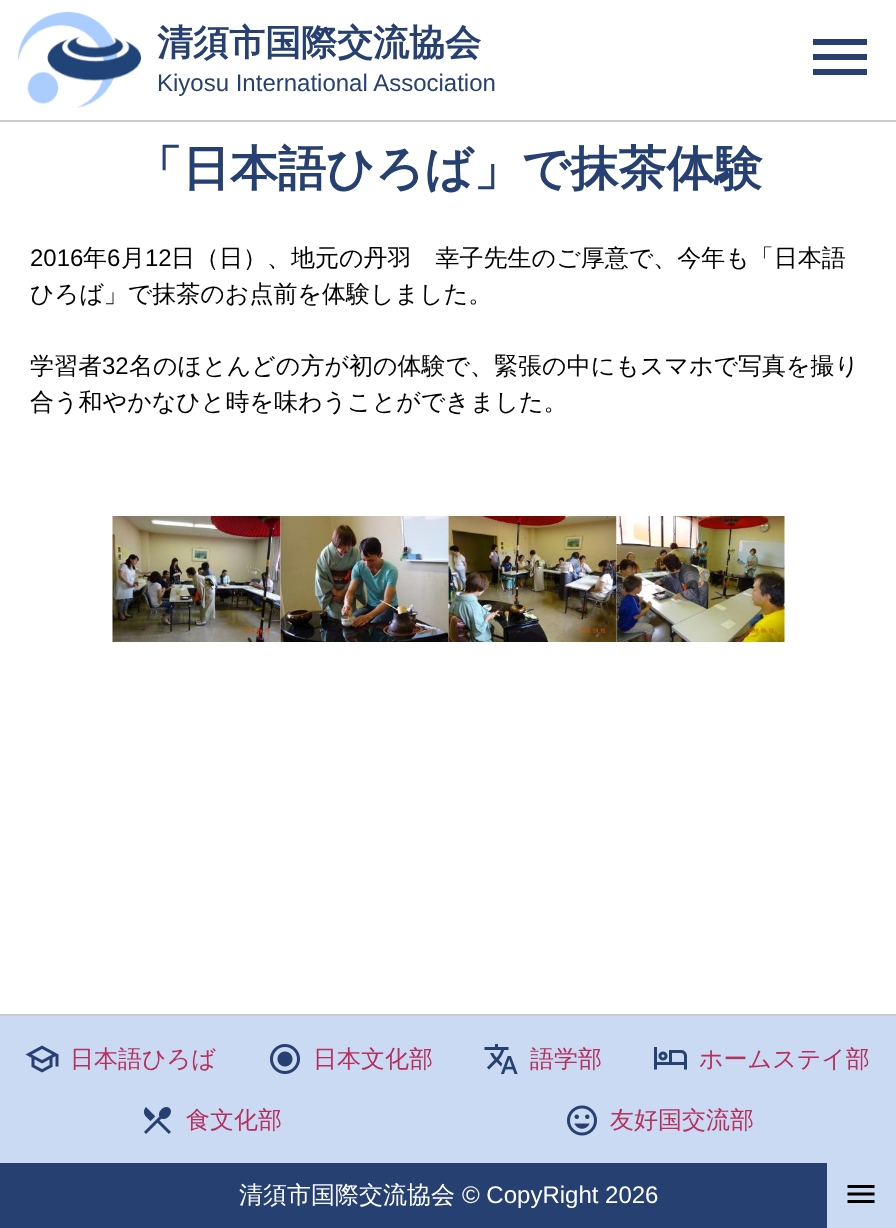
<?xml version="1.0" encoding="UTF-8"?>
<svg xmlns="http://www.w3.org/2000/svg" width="896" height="1228">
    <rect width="100%" height="100%" fill="#FFFFFF"/>
    <rect x="0" y="120" width="896" height="2" fill="#CCCCCC"/>
    <image x="18" y="12" width="123" height="96" href="img_01.png"/>
    <text x="157" y="55" font-family="WenQuanYi Zen Hei" font-size="36" font-weight="700" fill="#274072">清須市国際交流協会</text>
    <text x="157" y="91" font-family="Liberation Sans" font-size="24" fill="#274072">Kiyosu International Association</text>
    <path d="M 813 75 V 69 H 867 V 75 Z M 813 60 V 54 H 867 V 60 Z M 813 45 V 39 H 867 V 45 Z" fill="#274072"/>
    <text x="134" y="185" font-family="WenQuanYi Zen Hei" font-size="48" font-weight="700" fill="#274072">「日本語ひろば」で抹茶体験</text>
    <text x="30" y="266" font-family="Liberation Sans" font-size="24" fill="#000000">2016</text>
    <text x="83" y="266" font-family="WenQuanYi Zen Hei" font-size="24" font-weight="500" fill="#000000">年</text>
    <text x="107" y="266" font-family="Liberation Sans" font-size="24" fill="#000000">6</text>
    <text x="121" y="266" font-family="WenQuanYi Zen Hei" font-size="24" font-weight="500" fill="#000000">月</text>
    <text x="145" y="266" font-family="Liberation Sans" font-size="24" fill="#000000">12</text>
    <text x="171" y="266" font-family="WenQuanYi Zen Hei" font-size="24" font-weight="500" fill="#000000">日（日）、地元の丹羽　幸子先生のご厚意で、今年も「日本語</text>
    <text x="30" y="302" font-family="WenQuanYi Zen Hei" font-size="24" font-weight="500" fill="#000000">ひろば」で抹茶のお点前を体験しました。</text>
    <text x="30" y="374" font-family="WenQuanYi Zen Hei" font-size="24" font-weight="500" fill="#000000">学習者</text>
    <text x="102" y="374" font-family="Liberation Sans" font-size="24" fill="#000000">32</text>
    <text x="129" y="374" font-family="WenQuanYi Zen Hei" font-size="24" font-weight="500" fill="#000000">名のほとんどの方が初の体験で、緊張の中にもスマホで写真を撮り</text>
    <text x="30" y="410" font-family="WenQuanYi Zen Hei" font-size="24" font-weight="500" fill="#000000">合う和やかなひと時を味わうことができました。</text>
    <image x="112" y="516" width="169" height="126" href="img_02.png"/>
    <image x="280" y="516" width="169" height="126" href="img_03.png"/>
    <image x="448" y="516" width="169" height="126" href="img_04.png"/>
    <image x="616" y="516" width="169" height="126" href="img_05.png"/>
    <rect x="0" y="1014" width="896" height="2" fill="#CCCCCC"/>
    <rect x="0" y="1016" width="896" height="147" fill="#CADAF2"/>
    <image x="25" y="1045" width="34" height="28" href="img_06.png"/>
    <text x="70" y="1067" font-family="WenQuanYi Zen Hei" font-size="24" font-weight="500" fill="#B62F5E">日本語ひろば</text>
    <image x="270" y="1044" width="30" height="30" href="img_07.png"/>
    <text x="313" y="1067" font-family="WenQuanYi Zen Hei" font-size="24" font-weight="500" fill="#B62F5E">日本文化部</text>
    <image x="484" y="1044" width="34" height="30" href="img_08.png"/>
    <text x="530" y="1067" font-family="WenQuanYi Zen Hei" font-size="24" font-weight="500" fill="#B62F5E">語学部</text>
    <image x="654" y="1047" width="33" height="23" href="img_09.png"/>
    <text x="699" y="1067" font-family="WenQuanYi Zen Hei" font-size="24" font-weight="500" fill="#B62F5E">ホームステイ部</text>
    <image x="144" y="1107" width="27" height="27" href="img_10.png"/>
    <text x="186" y="1128" font-family="WenQuanYi Zen Hei" font-size="24" font-weight="500" fill="#B62F5E">食文化部</text>
    <image x="567" y="1105" width="30" height="31" href="img_11.png"/>
    <text x="610" y="1128" font-family="WenQuanYi Zen Hei" font-size="24" font-weight="500" fill="#B62F5E">友好国交流部</text>
    <rect x="0" y="1163" width="827" height="65" fill="#274072"/>
    <text x="239" y="1203" font-family="WenQuanYi Zen Hei" font-size="24" font-weight="500" fill="#FFFFFF">清須市国際交流協会</text>
    <text x="462" y="1203" font-family="Liberation Sans" font-size="24" fill="#FFFFFF">© CopyRight 2026</text>
    <rect x="827" y="1163" width="69" height="65" fill="#CADAF2"/>
    <image x="847" y="1185" width="28" height="18" href="img_12.png"/>
</svg>
